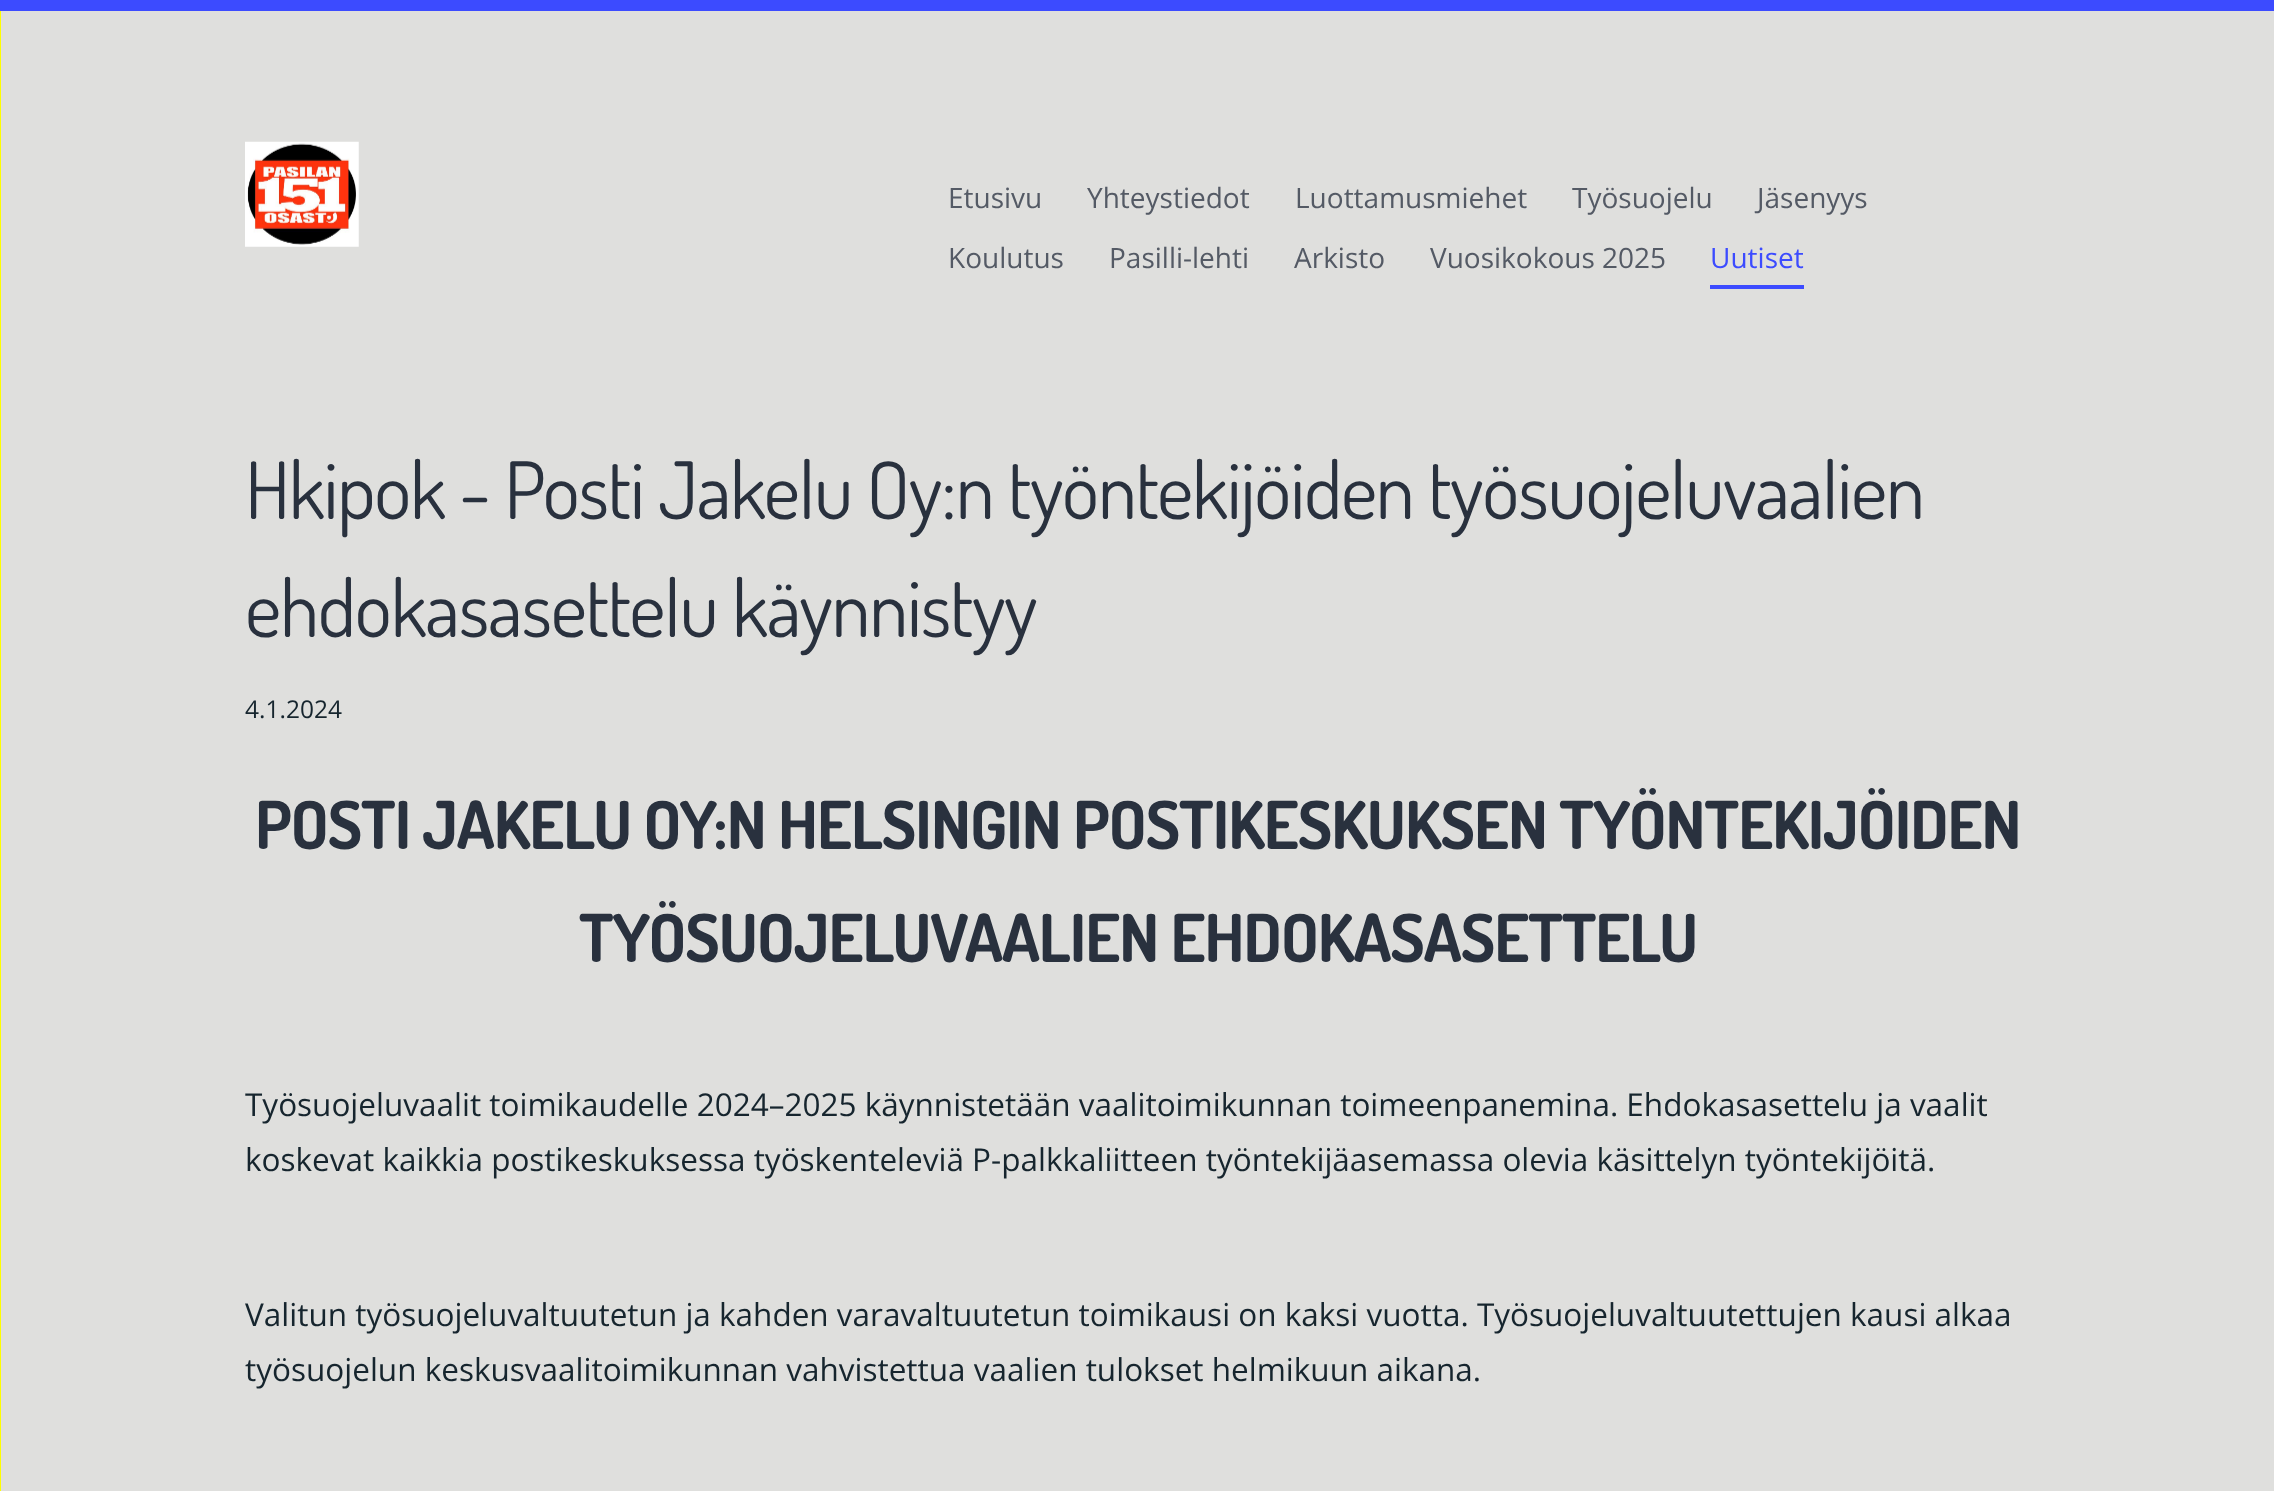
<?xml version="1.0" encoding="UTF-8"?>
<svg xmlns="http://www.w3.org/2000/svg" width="2274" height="1491">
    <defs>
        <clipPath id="clip1"><rect x="0" y="11" width="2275" height="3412"/></clipPath>
    </defs>
    <rect width="100%" height="100%" fill="#DFDFDD"/>
    <rect x="0" y="0" width="2274" height="11" fill="#3C4BFF"/>
    <g clip-path="url(#clip1)">
        <rect x="-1" y="9" width="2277" height="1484" fill="none" stroke="#FFFF00" stroke-width="4"/>
    </g>
    <image x="245" y="141" width="114" height="106" href="img_01.png"/>
    <text x="948" y="208" font-family="Open Sans" font-size="28" fill="#545A65">Etusivu</text>
    <text x="1087" y="208" font-family="Open Sans" font-size="28" fill="#545A65">Yhteystiedot</text>
    <text x="1295" y="208" font-family="Open Sans" font-size="28" fill="#545A65">Luottamusmiehet</text>
    <text x="1572" y="208" font-family="Open Sans" font-size="28" fill="#545A65">Työsuojelu</text>
    <text x="1757" y="208" font-family="Open Sans" font-size="28" fill="#545A65">Jäsenyys</text>
    <text x="948" y="268" font-family="Open Sans" font-size="28" fill="#545A65">Koulutus</text>
    <text x="1109" y="268" font-family="Open Sans" font-size="28" fill="#545A65">Pasilli-lehti</text>
    <text x="1294" y="268" font-family="Open Sans" font-size="28" fill="#545A65">Arkisto</text>
    <text x="1430" y="268" font-family="Open Sans" font-size="28" fill="#545A65">Vuosikokous 2025</text>
    <text x="1710" y="268" font-family="Open Sans" font-size="28" fill="#3C4BFF">Uutiset</text>
    <rect x="1710" y="285" width="94" height="4" fill="#3C4BFF"/>
    <text font-family="Dosis" font-size="78.9" letter-spacing="-1.18" fill="#29313E">
        <tspan x="245" y="519">Hkipok - Posti Jakelu Oy:n työntekijöiden työsuojeluvaalien</tspan>
        <tspan x="245" y="637">ehdokasasettelu käynnistyy</tspan>
    </text>
    <text x="245" y="718" font-family="Open Sans" font-size="24.5" fill="#16252E">4.1.2024</text>
    <text x="255" y="849" font-family="Dosis" font-size="66.05" font-weight="700" letter-spacing="-1" fill="#29313E">POSTI JAKELU OY:N HELSINGIN POSTIKESKUKSEN TYÖNTEKIJÖIDEN</text>
    <text x="579" y="962" font-family="Dosis" font-size="66.05" font-weight="700" letter-spacing="-1" fill="#29313E">TYÖSUOJELUVAALIEN EHDOKASASETTELU</text>
    <text font-family="Open Sans" font-size="31.5" fill="#16252E">
        <tspan x="245" y="1116">Työsuojeluvaalit toimikaudelle 2024–2025 käynnistetään vaalitoimikunnan toimeenpanemina. Ehdokasasettelu ja vaalit</tspan>
        <tspan x="245" y="1171">koskevat kaikkia postikeskuksessa työskenteleviä P-palkkaliitteen työntekijäasemassa olevia käsittelyn työntekijöitä.</tspan>
    </text>
    <text font-family="Open Sans" font-size="31.5" fill="#16252E">
        <tspan x="245" y="1326">Valitun työsuojeluvaltuutetun ja kahden varavaltuutetun toimikausi on kaksi vuotta. Työsuojeluvaltuutettujen kausi alkaa</tspan>
        <tspan x="245" y="1381">työsuojelun keskusvaalitoimikunnan vahvistettua vaalien tulokset helmikuun aikana.</tspan>
    </text>
</svg>
